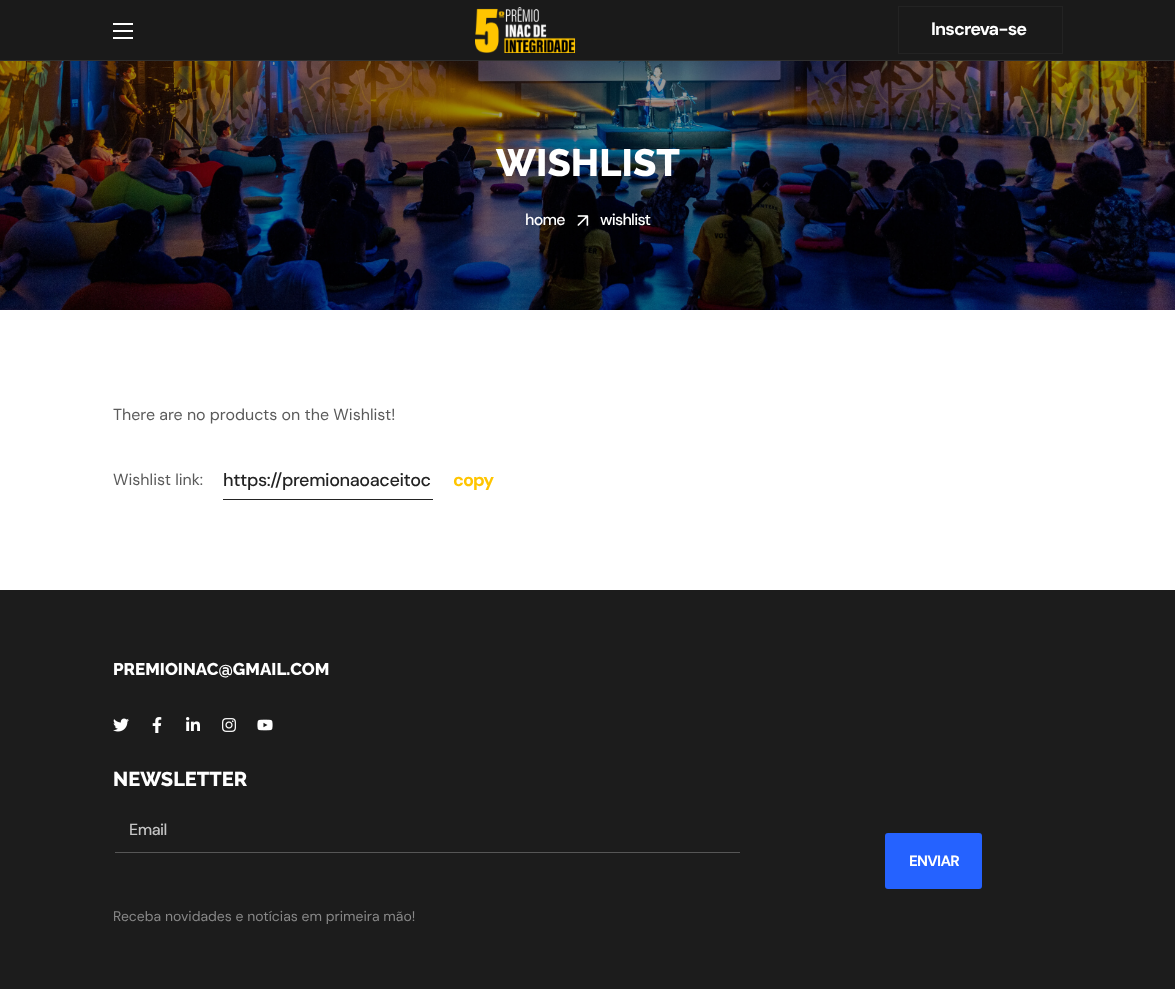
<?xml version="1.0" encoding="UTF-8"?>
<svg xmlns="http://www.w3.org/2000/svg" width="1175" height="989">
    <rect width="100%" height="100%" fill="#FFFFFF"/>
    <rect x="0" y="0" width="1175" height="60" fill="#1A1A1A"/>
    <rect x="0" y="60" width="1175" height="1" fill="#2F2F2F"/>
    <rect x="113" y="23" width="20" height="2" fill="#FFFFFF"/>
    <rect x="113" y="30" width="20" height="2" fill="#FFFFFF"/>
    <rect x="113" y="37" width="20" height="2" fill="#FFFFFF"/>
    <image x="475" y="7" width="101" height="46" href="img_01.png"/>
    <rect x="898.5" y="6.5" width="164" height="47" fill="none" stroke="#232323"/>
    <text x="931" y="35" font-family="DM Sans" font-size="18" font-weight="700" letter-spacing="-0.9" fill="#FFFFFF">Inscreva-se</text>
    <image x="0" y="61" width="1175" height="249" href="img_02.png"/>
    <text x="496" y="176" font-family="Raleway" font-size="38" font-weight="800" fill="#FFFFFF">WISHLIST</text>
    <text x="525" y="225" font-family="DM Sans" font-size="16" font-weight="500" letter-spacing="-0.75" fill="#FFFFFF">home</text>
    <image x="577" y="215" width="12" height="11" href="img_03.png"/>
    <text x="600" y="225" font-family="DM Sans" font-size="16" font-weight="500" letter-spacing="-0.75" fill="#FFFFFF">wishlist</text>
    <text x="113" y="420" font-family="DM Sans" font-size="16" fill="#5B5B5B">There are no products on the Wishlist!</text>
    <text x="113" y="485" font-family="DM Sans" font-size="16" fill="#5B5B5B">Wishlist link:</text>
    <rect x="223" y="499" width="210" height="1" fill="#232323"/>
    <text x="223" y="486" font-family="DM Sans" font-size="18" font-weight="500" letter-spacing="-0.4" fill="#232323">https://premionaoaceitoc</text>
    <text x="453" y="486" font-family="DM Sans" font-size="18" font-weight="700" letter-spacing="-0.9" fill="#FFC500">copy</text>
    <rect x="0" y="590" width="1175" height="399" fill="#1C1C1C"/>
    <text x="113" y="675" font-family="Raleway" font-size="17" font-weight="800" fill="#FFFFFF">PREMIOINAC@GMAIL.COM</text>
    <image x="113" y="718" width="16" height="14" href="img_04.png"/>
    <image x="152" y="717" width="10" height="16" href="img_05.png"/>
    <image x="186" y="717" width="14" height="14" href="img_06.png"/>
    <image x="222" y="718" width="14" height="14" href="img_07.png"/>
    <image x="257" y="719" width="16" height="12" href="img_08.png"/>
    <text x="113" y="786" font-family="Raleway" font-size="20" font-weight="800" fill="#FFFFFF">NEWSLETTER</text>
    <rect x="115" y="852" width="625" height="1" fill="#565656"/>
    <text x="129" y="835" font-family="DM Sans" font-size="16" font-weight="500" letter-spacing="-0.5" fill="#C5C5C5">Email</text>
    <rect x="885" y="833" width="97" height="56" rx="3" fill="#2562FF"/>
    <text x="909" y="866" font-family="DM Sans" font-size="15" font-weight="700" letter-spacing="-0.75" fill="#FFFFFF">ENVIAR</text>
    <text x="113" y="921" font-family="DM Sans" font-size="14" fill="#888888">Receba novidades e notícias em primeira mão!</text>
</svg>
